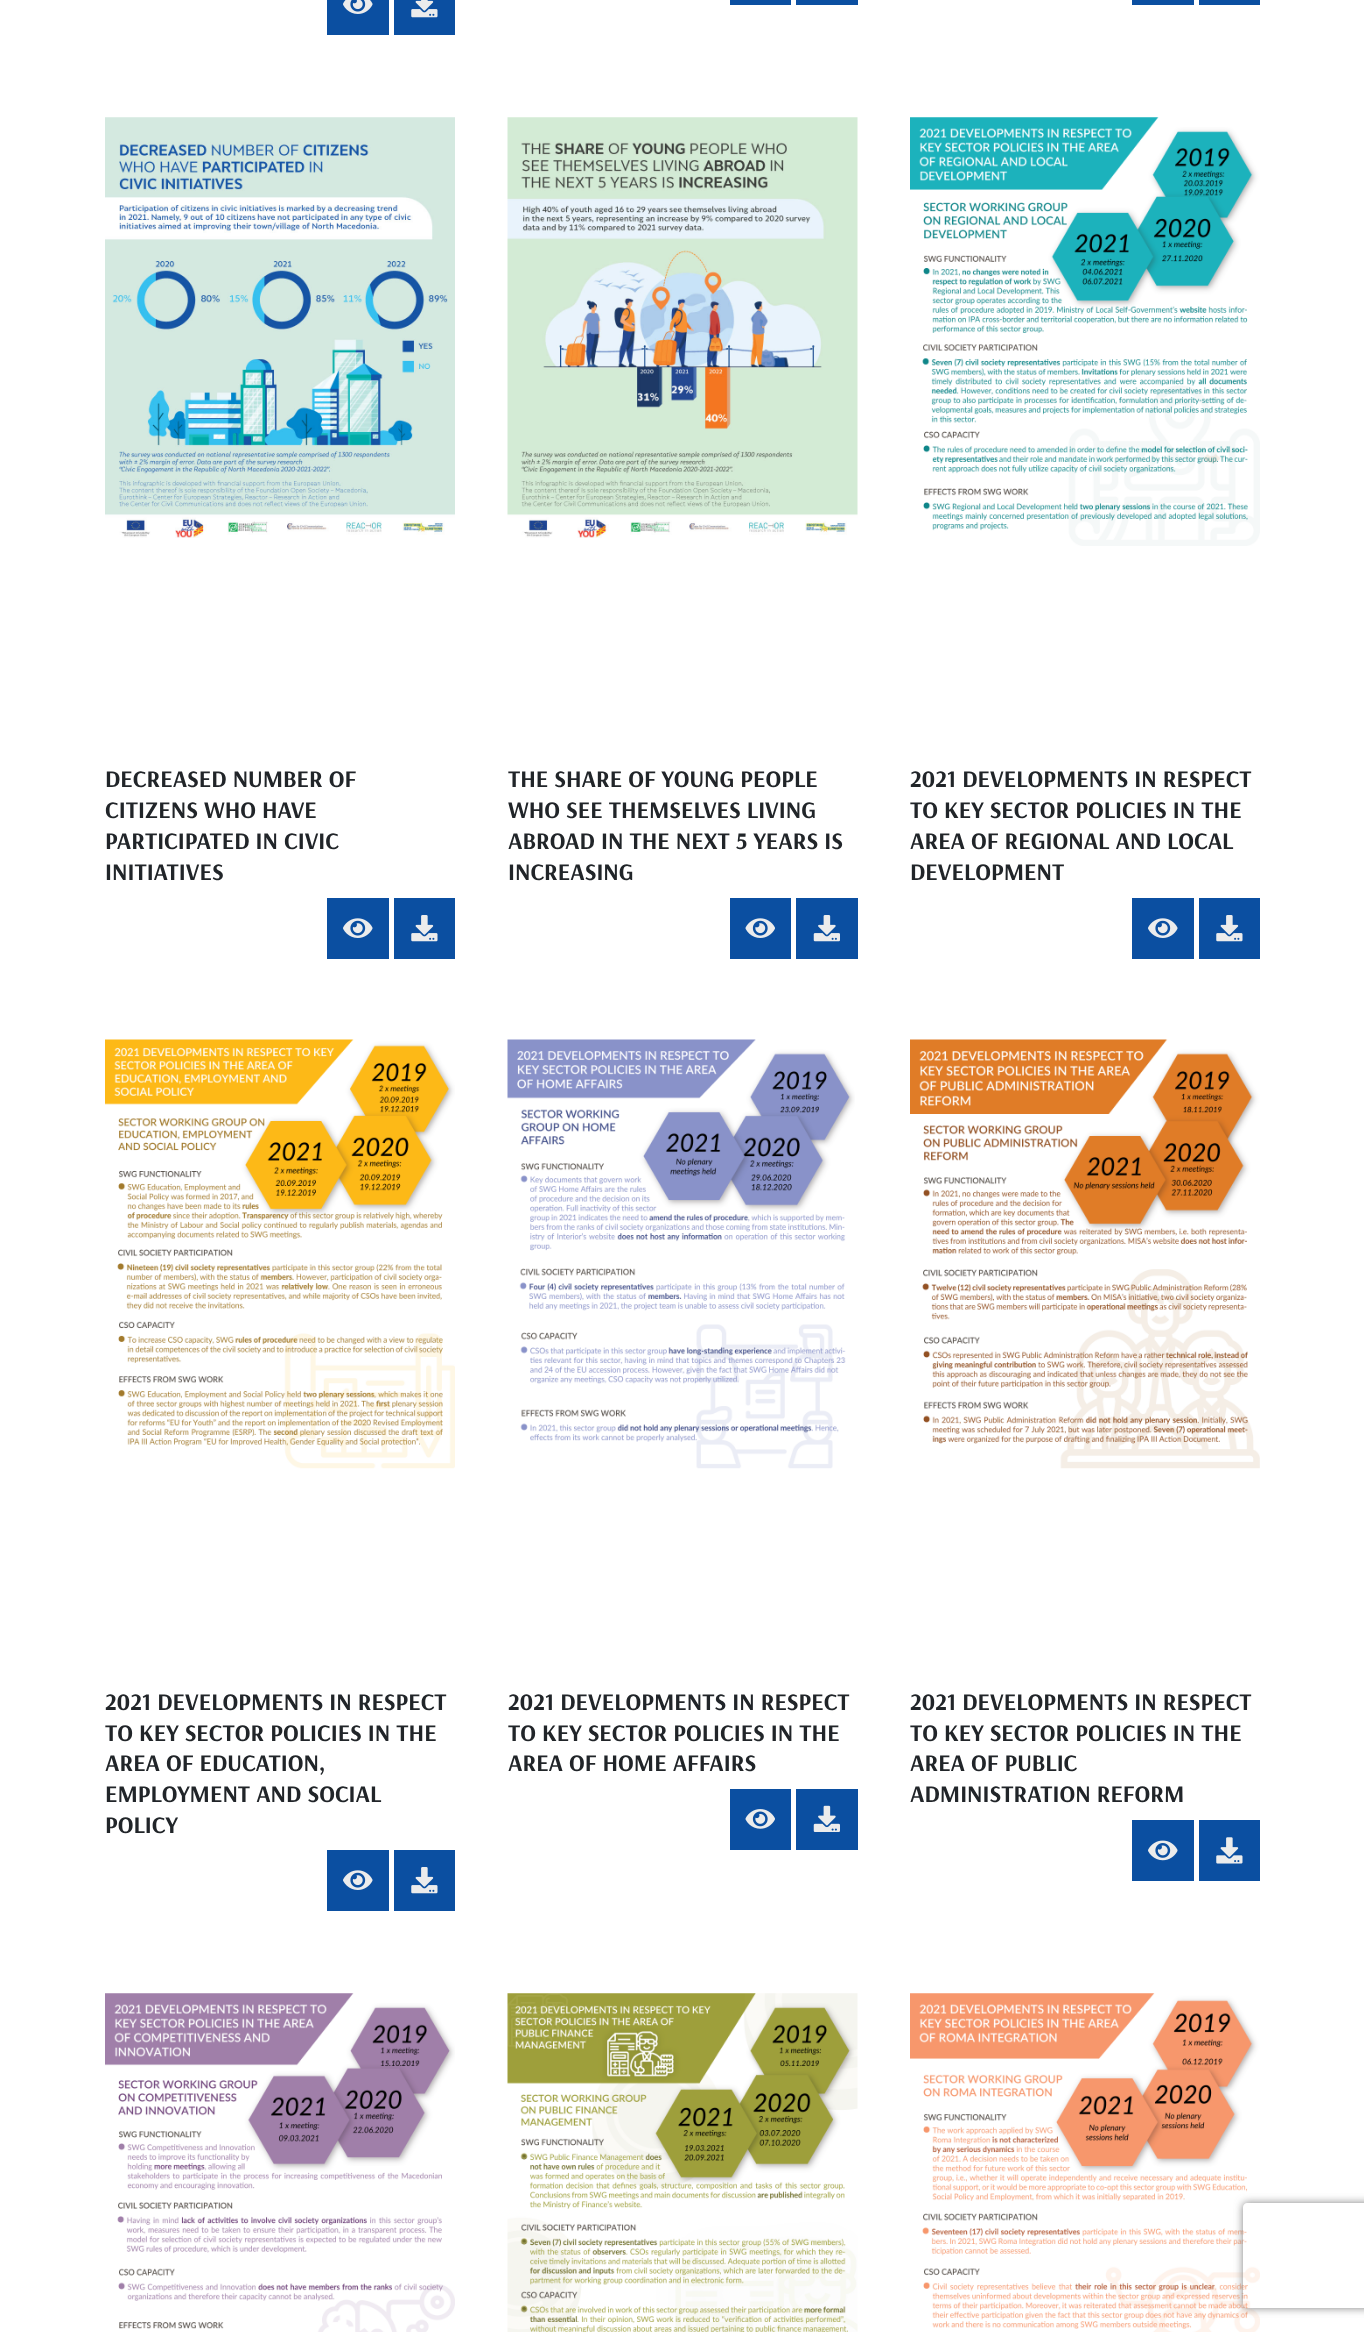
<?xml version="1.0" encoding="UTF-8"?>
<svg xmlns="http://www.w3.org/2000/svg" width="1364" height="2332">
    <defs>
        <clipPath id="clip1"><path d="M 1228 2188 H 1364 V 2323 H 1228 Z M 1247 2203 H 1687 C 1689 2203 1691 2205 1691 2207 V 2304 C 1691 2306 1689 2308 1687 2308 H 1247 C 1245 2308 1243 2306 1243 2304 V 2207 C 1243 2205 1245 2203 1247 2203 Z" clip-rule="evenodd"/></clipPath>
        <filter id="blur1" x="-50%" y="-200%" width="200%" height="500%"><feGaussianBlur stdDeviation="4.5"/></filter>
    </defs>
    <rect width="100%" height="100%" fill="#FFFFFF"/>
    <rect x="327" y="0" width="62" height="35" fill="#0B4FA1"/>
    <image x="343" y="0" width="30" height="14" href="img_01.png"/>
    <rect x="394" y="0" width="61" height="35" fill="#0B4FA1"/>
    <image x="411" y="0" width="27" height="18" href="img_02.png"/>
    <rect x="730" y="0" width="61" height="5" fill="#0B4FA1"/>
    <rect x="796" y="0" width="62" height="5" fill="#0B4FA1"/>
    <rect x="1132" y="0" width="62" height="5" fill="#0B4FA1"/>
    <rect x="1199" y="0" width="61" height="5" fill="#0B4FA1"/>
    <image x="105" y="117" width="350" height="421" href="img_03.png"/>
    <text font-family="Arsenal" font-size="23.75" font-weight="700" fill="#212529">
        <tspan x="105" y="787">DECREASED NUMBER OF</tspan>
        <tspan x="105" y="818">CITIZENS WHO HAVE</tspan>
        <tspan x="105" y="849">PARTICIPATED IN CIVIC</tspan>
        <tspan x="105" y="880">INITIATIVES</tspan>
    </text>
    <rect x="327" y="898" width="62" height="61" fill="#0B4FA1"/>
    <image x="343" y="918" width="30" height="20" href="img_04.png"/>
    <rect x="394" y="898" width="61" height="61" fill="#0B4FA1"/>
    <image x="411" y="915" width="27" height="27" href="img_05.png"/>
    <image x="507" y="117" width="351" height="421" href="img_06.png"/>
    <text font-family="Arsenal" font-size="23.75" font-weight="700" fill="#212529">
        <tspan x="508" y="787">THE SHARE OF YOUNG PEOPLE</tspan>
        <tspan x="508" y="818">WHO SEE THEMSELVES LIVING</tspan>
        <tspan x="508" y="849">ABROAD IN THE NEXT 5 YEARS IS</tspan>
        <tspan x="508" y="880">INCREASING</tspan>
    </text>
    <rect x="730" y="898" width="61" height="61" fill="#0B4FA1"/>
    <image x="745" y="918" width="30" height="20" href="img_07.png"/>
    <rect x="796" y="898" width="62" height="61" fill="#0B4FA1"/>
    <image x="813" y="915" width="27" height="27" href="img_08.png"/>
    <image x="910" y="117" width="350" height="429" href="img_09.png"/>
    <text font-family="Arsenal" font-size="23.75" font-weight="700" fill="#212529">
        <tspan x="910" y="787">2021 DEVELOPMENTS IN RESPECT</tspan>
        <tspan x="910" y="818">TO KEY SECTOR POLICIES IN THE</tspan>
        <tspan x="910" y="849">AREA OF REGIONAL AND LOCAL</tspan>
        <tspan x="910" y="880">DEVELOPMENT</tspan>
    </text>
    <rect x="1132" y="898" width="62" height="61" fill="#0B4FA1"/>
    <image x="1148" y="918" width="30" height="20" href="img_04.png"/>
    <rect x="1199" y="898" width="61" height="61" fill="#0B4FA1"/>
    <image x="1216" y="915" width="27" height="27" href="img_05.png"/>
    <image x="105" y="1039" width="350" height="430" href="img_10.png"/>
    <text font-family="Arsenal" font-size="23.75" font-weight="700" fill="#212529">
        <tspan x="105" y="1710">2021 DEVELOPMENTS IN RESPECT</tspan>
        <tspan x="105" y="1741">TO KEY SECTOR POLICIES IN THE</tspan>
        <tspan x="105" y="1771">AREA OF EDUCATION,</tspan>
        <tspan x="105" y="1802">EMPLOYMENT AND SOCIAL</tspan>
        <tspan x="105" y="1833">POLICY</tspan>
    </text>
    <rect x="327" y="1850" width="62" height="61" fill="#0B4FA1"/>
    <image x="343" y="1870" width="30" height="20" href="img_04.png"/>
    <rect x="394" y="1850" width="61" height="61" fill="#0B4FA1"/>
    <image x="411" y="1867" width="27" height="27" href="img_05.png"/>
    <image x="507" y="1039" width="348" height="430" href="img_11.png"/>
    <text font-family="Arsenal" font-size="23.75" font-weight="700" fill="#212529">
        <tspan x="508" y="1710">2021 DEVELOPMENTS IN RESPECT</tspan>
        <tspan x="508" y="1741">TO KEY SECTOR POLICIES IN THE</tspan>
        <tspan x="508" y="1771">AREA OF HOME AFFAIRS</tspan>
    </text>
    <rect x="730" y="1789" width="61" height="61" fill="#0B4FA1"/>
    <image x="745" y="1809" width="30" height="20" href="img_12.png"/>
    <rect x="796" y="1789" width="62" height="61" fill="#0B4FA1"/>
    <image x="813" y="1805" width="27" height="27" href="img_13.png"/>
    <image x="910" y="1039" width="350" height="430" href="img_14.png"/>
    <text font-family="Arsenal" font-size="23.75" font-weight="700" fill="#212529">
        <tspan x="910" y="1710">2021 DEVELOPMENTS IN RESPECT</tspan>
        <tspan x="910" y="1741">TO KEY SECTOR POLICIES IN THE</tspan>
        <tspan x="910" y="1771">AREA OF PUBLIC</tspan>
        <tspan x="910" y="1802">ADMINISTRATION REFORM</tspan>
    </text>
    <rect x="1132" y="1820" width="62" height="61" fill="#0B4FA1"/>
    <image x="1148" y="1840" width="30" height="21" href="img_15.png"/>
    <rect x="1199" y="1820" width="61" height="61" fill="#0B4FA1"/>
    <image x="1216" y="1837" width="27" height="27" href="img_16.png"/>
    <image x="105" y="1993" width="350" height="339" href="img_17.png"/>
    <image x="507" y="1993" width="351" height="339" href="img_18.png"/>
    <image x="910" y="1993" width="350" height="339" href="img_19.png"/>
    <g clip-path="url(#clip1)">
        <rect x="1243" y="2203" width="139" height="105" rx="4" fill="#808080" filter="url(#blur1)"/>
    </g>
</svg>
